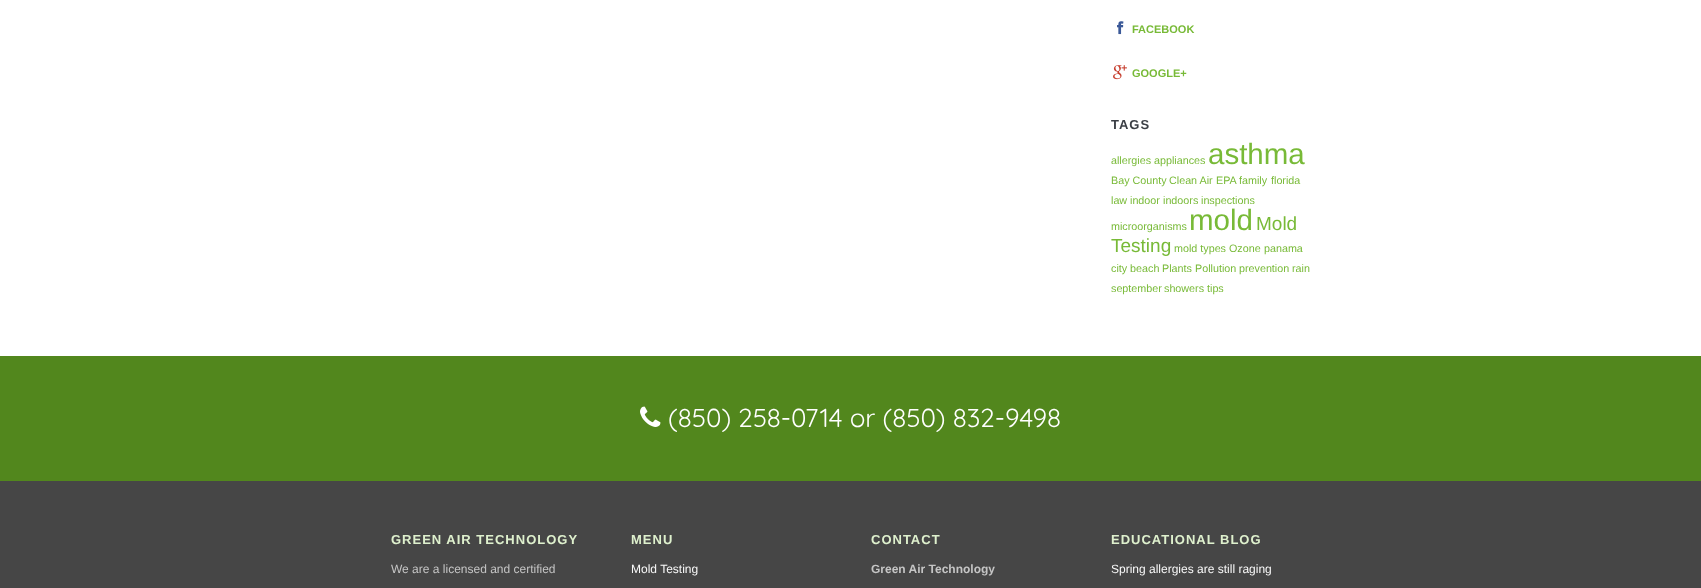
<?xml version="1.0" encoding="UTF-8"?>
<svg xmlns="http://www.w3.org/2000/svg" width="1701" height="588">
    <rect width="100%" height="100%" fill="#FFFFFF"/>
    <image x="1117" y="21" width="7" height="14" href="img_01.png"/>
    <text x="1132" y="33" font-family="Liberation Sans" font-size="11" font-weight="700" fill="#78BA37">FACEBOOK</text>
    <image x="1113" y="65" width="14" height="15" href="img_02.png"/>
    <text x="1132" y="77" font-family="Liberation Sans" font-size="11" font-weight="700" fill="#78BA37">GOOGLE+</text>
    <text x="1111" y="129" font-family="Liberation Sans" font-size="13" font-weight="700" letter-spacing="1" fill="#3B3F45">TAGS</text>
    <text x="1111" y="164" font-family="Liberation Sans" font-size="10.75" fill="#78BA37">allergies</text>
    <text x="1154" y="164" font-family="Liberation Sans" font-size="10.75" fill="#78BA37">appliances</text>
    <text x="1208" y="164" font-family="Liberation Sans" font-size="29.5" fill="#78BA37">asthma</text>
    <text x="1111" y="184" font-family="Liberation Sans" font-size="10.75" fill="#78BA37">Bay County</text>
    <text x="1169" y="184" font-family="Liberation Sans" font-size="10.75" fill="#78BA37">Clean Air</text>
    <text x="1216" y="184" font-family="Liberation Sans" font-size="10.75" fill="#78BA37">EPA</text>
    <text x="1239" y="184" font-family="Liberation Sans" font-size="10.75" fill="#78BA37">family</text>
    <text x="1271" y="184" font-family="Liberation Sans" font-size="10.75" fill="#78BA37">florida</text>
    <text x="1111" y="204" font-family="Liberation Sans" font-size="10.75" fill="#78BA37">law</text>
    <text x="1130" y="204" font-family="Liberation Sans" font-size="10.75" fill="#78BA37">indoor</text>
    <text x="1163" y="204" font-family="Liberation Sans" font-size="10.75" fill="#78BA37">indoors</text>
    <text x="1201" y="204" font-family="Liberation Sans" font-size="10.75" fill="#78BA37">inspections</text>
    <text x="1111" y="230" font-family="Liberation Sans" font-size="10.75" fill="#78BA37">microorganisms</text>
    <text x="1189" y="230" font-family="Liberation Sans" font-size="29.5" fill="#78BA37">mold</text>
    <text x="1256" y="230" font-family="Liberation Sans" font-size="19" fill="#78BA37">Mold</text>
    <text x="1111" y="252" font-family="Liberation Sans" font-size="19" fill="#78BA37">Testing</text>
    <text x="1174" y="252" font-family="Liberation Sans" font-size="10.75" fill="#78BA37">mold types</text>
    <text x="1229" y="252" font-family="Liberation Sans" font-size="10.75" fill="#78BA37">Ozone</text>
    <text x="1264" y="252" font-family="Liberation Sans" font-size="10.75" fill="#78BA37">panama</text>
    <text x="1111" y="272" font-family="Liberation Sans" font-size="10.75" fill="#78BA37">city beach</text>
    <text x="1162" y="272" font-family="Liberation Sans" font-size="10.75" fill="#78BA37">Plants</text>
    <text x="1195" y="272" font-family="Liberation Sans" font-size="10.75" fill="#78BA37">Pollution</text>
    <text x="1239" y="272" font-family="Liberation Sans" font-size="10.75" fill="#78BA37">prevention</text>
    <text x="1292" y="272" font-family="Liberation Sans" font-size="10.75" fill="#78BA37">rain</text>
    <text x="1111" y="292" font-family="Liberation Sans" font-size="10.75" fill="#78BA37">september</text>
    <text x="1164" y="292" font-family="Liberation Sans" font-size="10.75" fill="#78BA37">showers</text>
    <text x="1207" y="292" font-family="Liberation Sans" font-size="10.75" fill="#78BA37">tips</text>
    <rect x="0" y="481" width="1701" height="107" fill="#464646"/>
    <rect x="0" y="356" width="1701" height="125" fill="#52871D"/>
    <image x="640" y="406" width="21" height="21" href="img_03.png"/>
    <text x="668" y="427" font-family="Quicksand" font-size="26" font-weight="300" fill="#FFFFFF">(850) 258-0714 or (850) 832-9498</text>
    <text x="391" y="544" font-family="Liberation Sans" font-size="13" font-weight="700" letter-spacing="1" fill="#DEF0CD">GREEN AIR TECHNOLOGY</text>
    <text x="391" y="573" font-family="Liberation Sans" font-size="12" fill="#C5C5C5">We are a licensed and certified</text>
    <text x="631" y="544" font-family="Liberation Sans" font-size="13" font-weight="700" letter-spacing="1" fill="#DEF0CD">MENU</text>
    <text x="631" y="573" font-family="Liberation Sans" font-size="12" fill="#F8F8F8">Mold Testing</text>
    <text x="871" y="544" font-family="Liberation Sans" font-size="13" font-weight="700" letter-spacing="1" fill="#DEF0CD">CONTACT</text>
    <text x="871" y="573" font-family="Liberation Sans" font-size="12" font-weight="700" fill="#C5C5C5">Green Air Technology</text>
    <text x="1111" y="544" font-family="Liberation Sans" font-size="13" font-weight="700" letter-spacing="1" fill="#DEF0CD">EDUCATIONAL BLOG</text>
    <text x="1111" y="573" font-family="Liberation Sans" font-size="12" fill="#F8F8F8">Spring allergies are still raging</text>
</svg>
